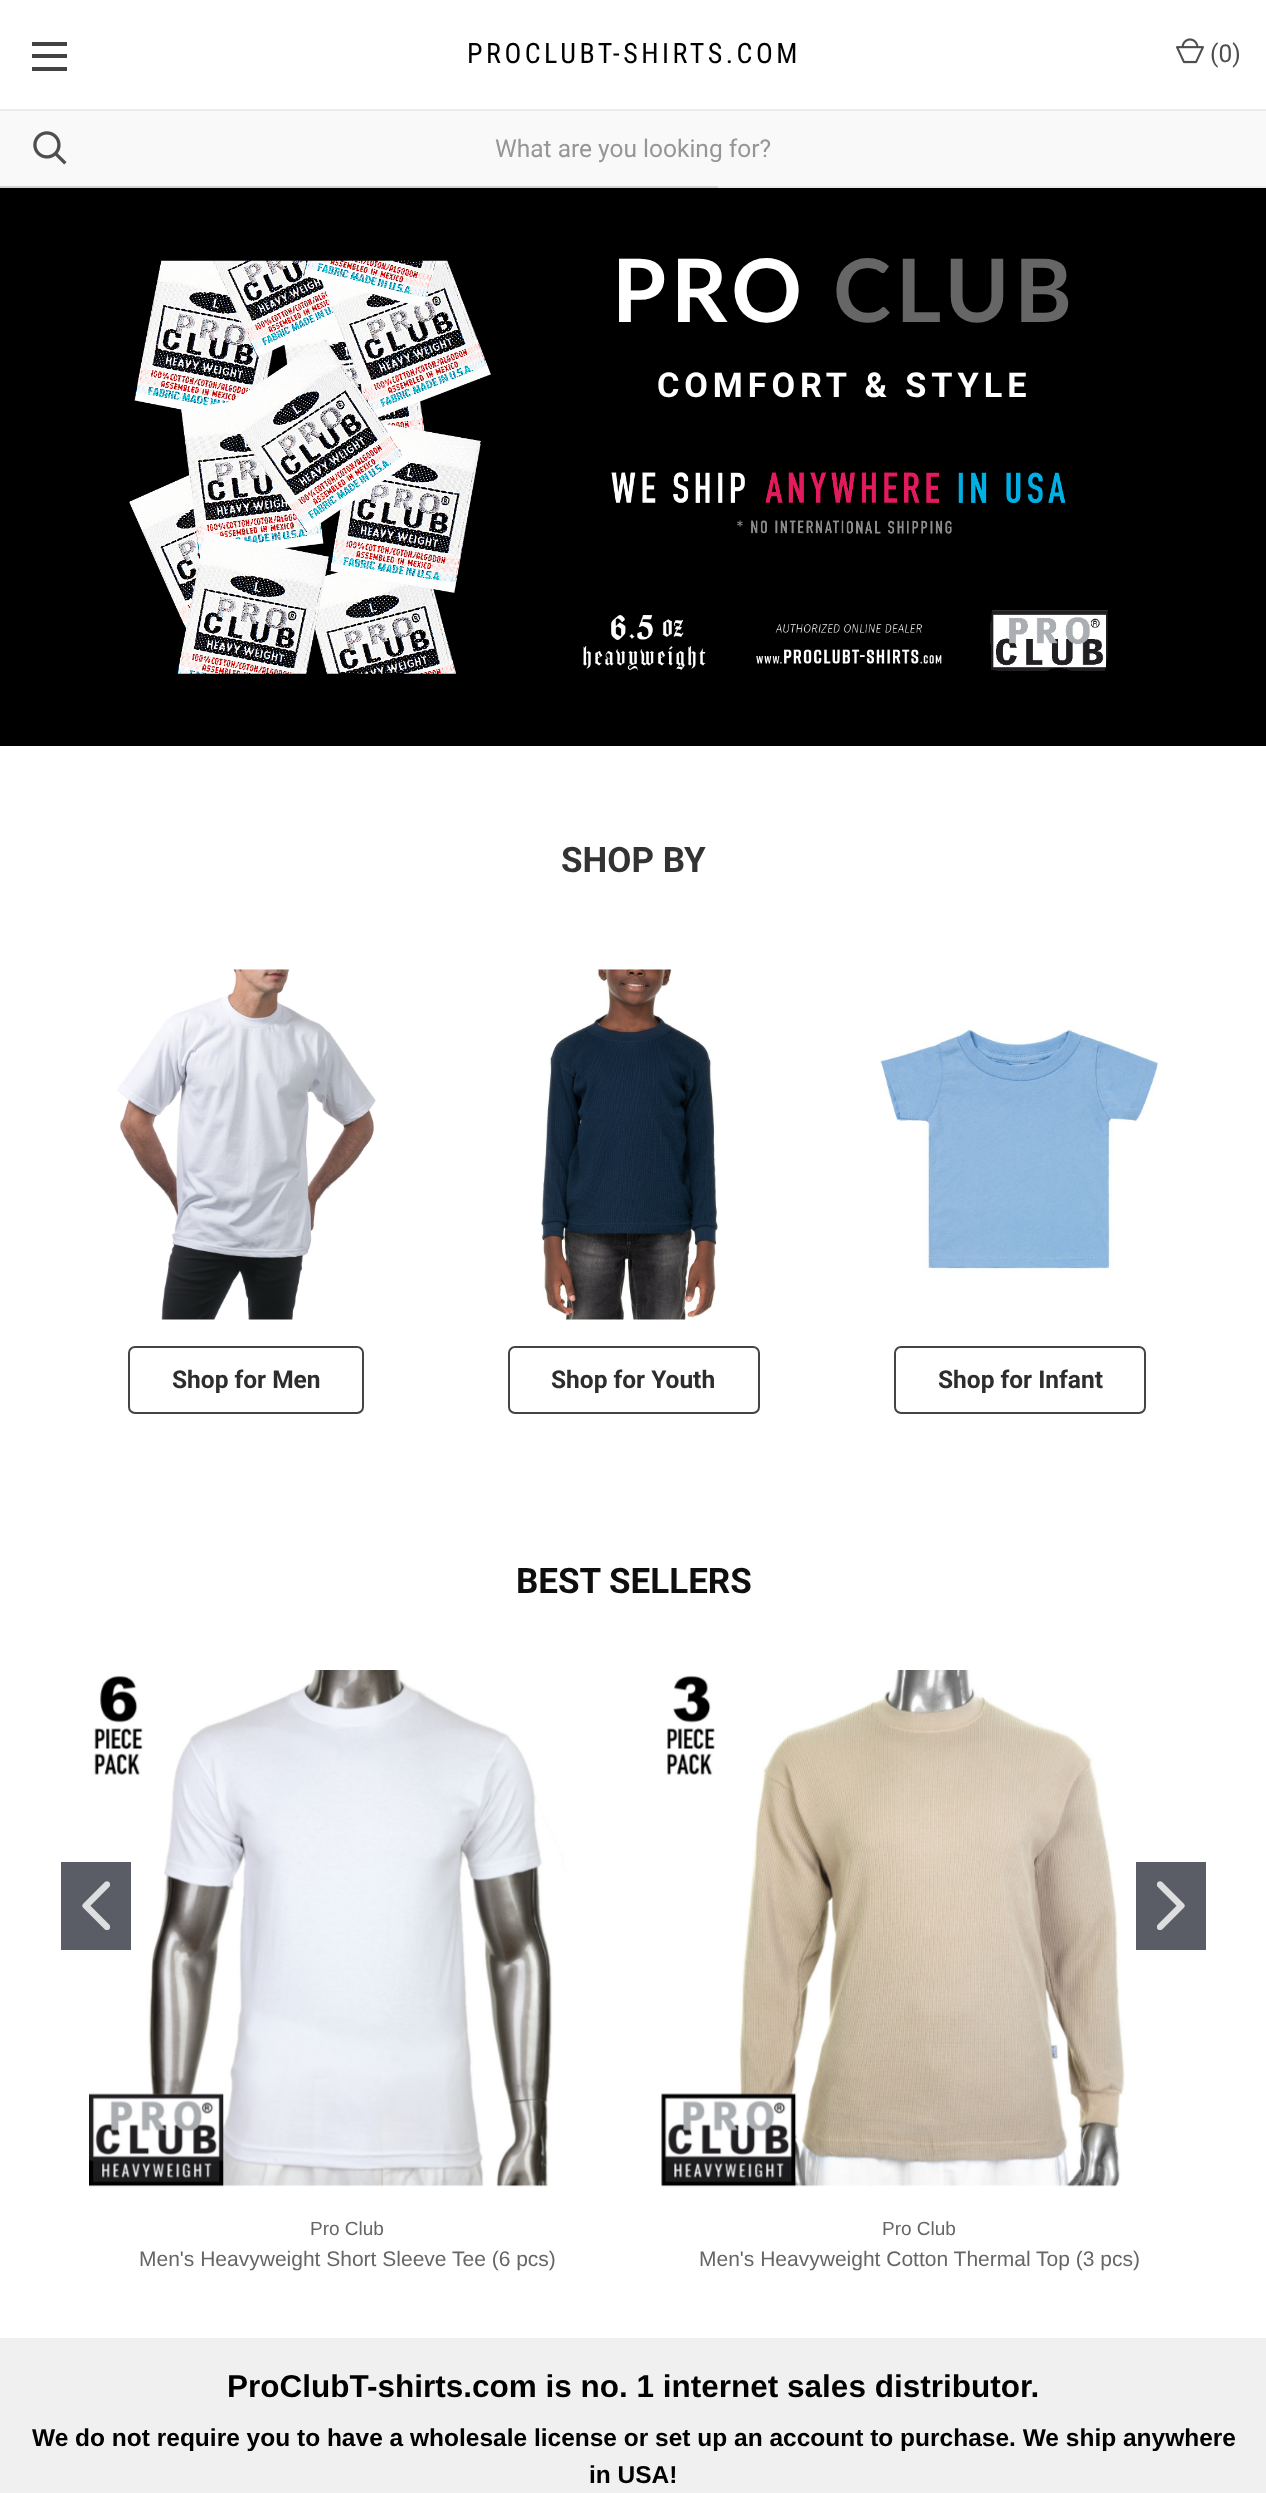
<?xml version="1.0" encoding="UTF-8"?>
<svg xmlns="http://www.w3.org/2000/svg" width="1266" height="2493">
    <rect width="100%" height="100%" fill="#FFFFFF"/>
    <rect x="718" y="186" width="548" height="2" fill="#EBEBEB"/>
    <rect x="32" y="54" width="35" height="4" fill="#424242"/>
    <rect x="32" y="42" width="35" height="4" fill="#424242"/>
    <rect x="32" y="67" width="35" height="4" fill="#424242"/>
    <text x="467" y="63" font-family="Roboto Condensed" font-size="28" letter-spacing="3.5" fill="#000000">PROCLUBT-SHIRTS.COM</text>
    <image x="1176" y="38" width="28" height="26" href="img_01.png"/>
    <text x="1210" y="62" font-family="Roboto" font-size="24.5" fill="#4E4E4E">(0)</text>
    <rect x="0" y="111" width="1266" height="75" fill="#F9F9F9"/>
    <image x="33" y="131" width="34" height="34" href="img_02.png"/>
    <rect x="0" y="109" width="1266" height="2" fill="#EBEBEB"/>
    <text x="495" y="157" font-family="Roboto" font-size="24.5" fill="#969696">What are you looking for?</text>
    <rect x="0" y="186" width="718" height="2" fill="#D2D2D2"/>
    <rect x="0" y="188" width="1266" height="558" fill="#000000"/>
    <image x="129" y="260" width="362" height="414" href="img_03.png"/>
    <text x="612" y="322" font-family="Lato" font-size="87.5" font-weight="700" letter-spacing="4.9" fill="#FFFFFF">PRO</text>
    <text x="833" y="322" font-family="Lato" font-size="87.5" font-weight="700" letter-spacing="4.9" fill="#666666">CLUB</text>
    <text x="657" y="397" font-family="Roboto" font-size="34.25" font-weight="700" letter-spacing="4.9" fill="#FFFFFF">COMFORT &amp; STYLE</text>
    <image x="611" y="472" width="455" height="62" href="img_04.png"/>
    <image x="583" y="610" width="525" height="61" href="img_05.png"/>
    <text x="561" y="872" font-family="Roboto" font-size="35" font-weight="700" fill="#333333">SHOP BY</text>
    <image x="117" y="969" width="259" height="351" href="img_06.png"/>
    <rect x="129" y="1347" width="234" height="66" rx="6" fill="none" stroke="#444444" stroke-width="2"/>
    <text x="172" y="1388" font-family="Roboto" font-size="24.5" font-weight="700" fill="#2D2D2D">Shop for Men</text>
    <image x="541" y="969" width="178" height="351" href="img_07.png"/>
    <rect x="509" y="1347" width="250" height="66" rx="6" fill="none" stroke="#444444" stroke-width="2"/>
    <text x="551" y="1388" font-family="Roboto" font-size="24.5" font-weight="700" fill="#2D2D2D">Shop for Youth</text>
    <image x="879" y="1026" width="280" height="246" href="img_08.png"/>
    <rect x="895" y="1347" width="250" height="66" rx="6" fill="none" stroke="#444444" stroke-width="2"/>
    <text x="938" y="1388" font-family="Roboto" font-size="24.5" font-weight="700" fill="#2D2D2D">Shop for Infant</text>
    <text x="516" y="1593" font-family="Roboto" font-size="35" font-weight="700" fill="#0F0F0F">BEST SELLERS</text>
    <image x="89" y="1670" width="478" height="517" href="img_11.png"/>
    <rect x="61" y="1862" width="70" height="88" fill="#5A5D66"/>
    <image x="82" y="1881" width="28" height="49" href="img_09.png"/>
    <rect x="1136" y="1862" width="70" height="88" fill="#5A5D66"/>
    <image x="1157" y="1881" width="28" height="49" href="img_10.png"/>
    <text x="310" y="2235" font-family="Liberation Sans" font-size="19" fill="#666666">Pro Club</text>
    <text x="139" y="2266" font-family="Liberation Sans" font-size="21" fill="#666666">Men's Heavyweight Short Sleeve Tee (6 pcs)</text>
    <image x="661" y="1670" width="464" height="517" href="img_12.png"/>
    <text x="882" y="2235" font-family="Liberation Sans" font-size="19" fill="#666666">Pro Club</text>
    <text x="699" y="2266" font-family="Liberation Sans" font-size="21" fill="#666666">Men's Heavyweight Cotton Thermal Top (3 pcs)</text>
    <rect x="0" y="2338" width="1266" height="155" fill="#F0F0F0"/>
    <text x="227" y="2397" font-family="Liberation Sans" font-size="31.5" font-weight="700" fill="#000000">ProClubT-shirts.com is no. 1 internet sales distributor.</text>
    <text x="32" y="2446" font-family="Liberation Sans" font-size="24.5" font-weight="700" fill="#000000">We do not require you to have a wholesale license or set up an account to purchase. We ship anywhere</text>
    <text x="589" y="2483" font-family="Liberation Sans" font-size="24.5" font-weight="700" fill="#000000">in USA!</text>
</svg>
